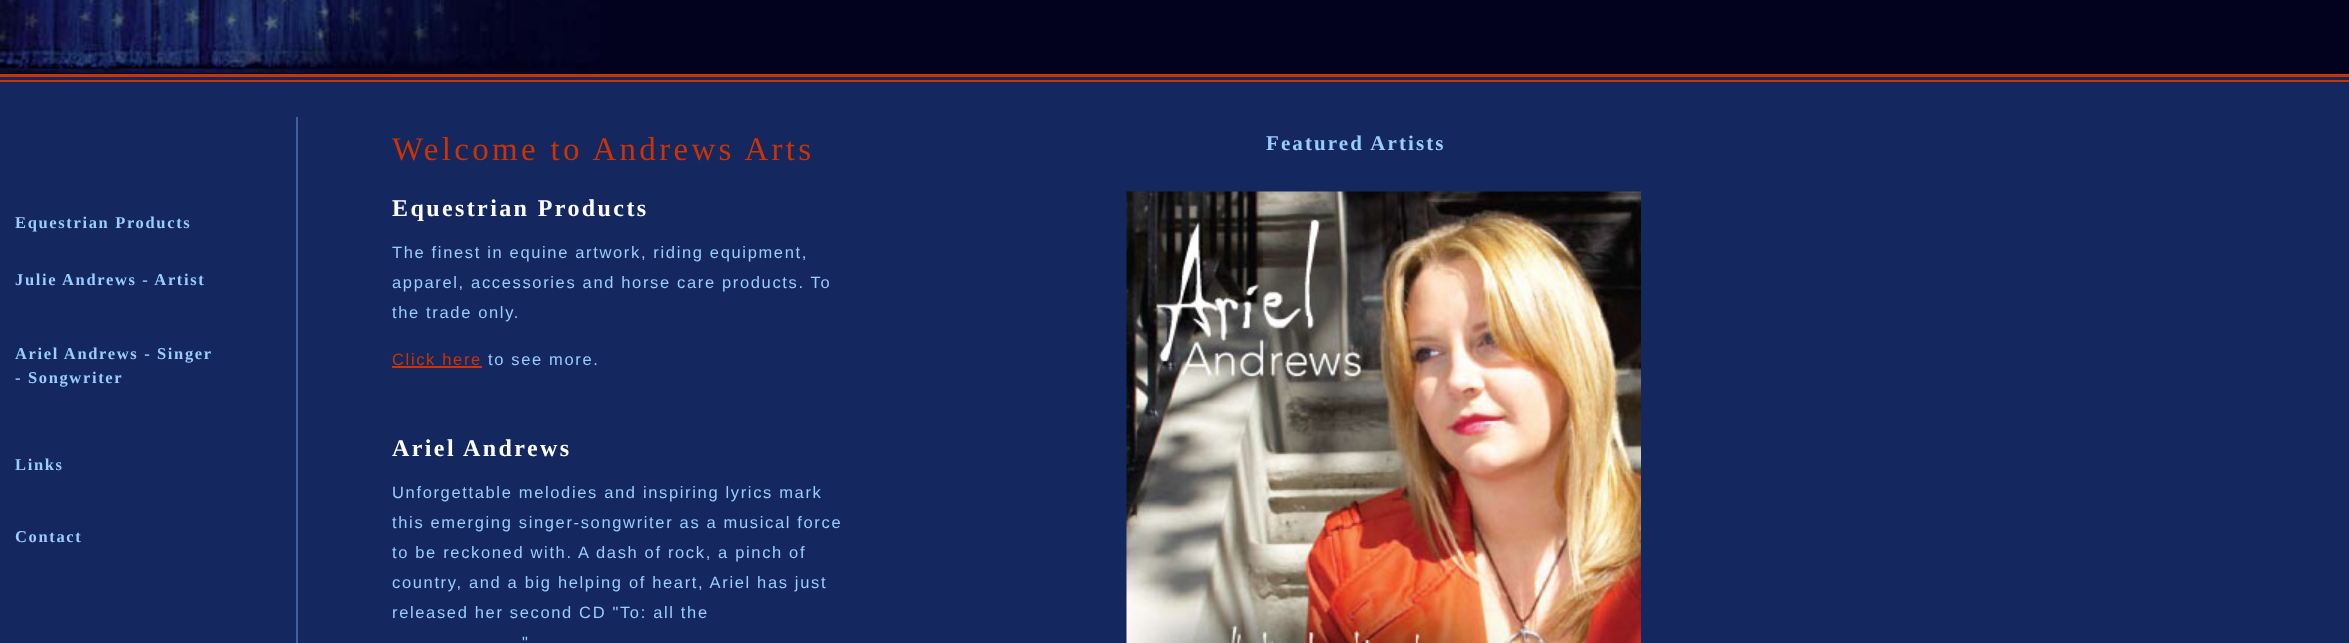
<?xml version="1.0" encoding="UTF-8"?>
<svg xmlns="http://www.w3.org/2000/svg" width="2349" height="643">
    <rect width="100%" height="100%" fill="#14285F"/>
    <rect x="0" y="0" width="2349" height="74" fill="#02021E"/>
    <image x="0" y="0" width="600" height="73" href="img_01.png"/>
    <rect x="0" y="74" width="2349" height="3" fill="#CC3300"/>
    <rect x="0" y="80" width="2349" height="2" fill="#CC3300"/>
    <text x="15" y="228" font-family="Liberation Serif" font-size="16.5" font-weight="700" letter-spacing="1.65" fill="#99CCFF">Equestrian Products</text>
    <text x="15" y="285" font-family="Liberation Serif" font-size="16.5" font-weight="700" letter-spacing="1.65" fill="#99CCFF">Julie Andrews - Artist</text>
    <text font-family="Liberation Serif" font-size="16.5" font-weight="700" letter-spacing="1.65" fill="#99CCFF">
        <tspan x="15" y="359">Ariel Andrews - Singer</tspan>
        <tspan x="15" y="383">- Songwriter</tspan>
    </text>
    <text x="15" y="470" font-family="Liberation Serif" font-size="16.5" font-weight="700" letter-spacing="1.65" fill="#99CCFF">Links</text>
    <text x="15" y="542" font-family="Liberation Serif" font-size="16.5" font-weight="700" letter-spacing="1.65" fill="#99CCFF">Contact</text>
    <rect x="296" y="117" width="2" height="526" fill="#445DA0"/>
    <text x="392" y="160" font-family="Liberation Serif" font-size="33" letter-spacing="3.3" fill="#CC3300">Welcome to Andrews Arts</text>
    <text x="392" y="216" font-family="Liberation Serif" font-size="24" font-weight="700" letter-spacing="2.4" fill="#FFFFFF">Equestrian Products</text>
    <text font-family="Liberation Sans" font-size="16.5" letter-spacing="1.65" fill="#99CCFF">
        <tspan x="392" y="258">The finest in equine artwork, riding equipment,</tspan>
        <tspan x="392" y="288">apparel, accessories and horse care products. To</tspan>
        <tspan x="392" y="318">the trade only.</tspan>
    </text>
    <text x="392" y="365" font-family="Liberation Sans" font-size="16.5" letter-spacing="1.65" fill="#CC3300">Click here</text>
    <rect x="392" y="366" width="90" height="2" fill="#CC3300"/>
    <text x="488" y="365" font-family="Liberation Sans" font-size="16.5" letter-spacing="1.65" fill="#99CCFF">to see more.</text>
    <text x="392" y="456" font-family="Liberation Serif" font-size="24" font-weight="700" letter-spacing="2.4" fill="#FFFFFF">Ariel Andrews</text>
    <text font-family="Liberation Sans" font-size="16.5" letter-spacing="1.65" fill="#99CCFF">
        <tspan x="392" y="498">Unforgettable melodies and inspiring lyrics mark</tspan>
        <tspan x="392" y="528">this emerging singer-songwriter as a musical force</tspan>
        <tspan x="392" y="558">to be reckoned with. A dash of rock, a pinch of</tspan>
        <tspan x="392" y="588">country, and a big helping of heart, Ariel has just</tspan>
        <tspan x="392" y="618">released her second CD "To: all the</tspan>
    </text>
    <text x="522" y="648" font-family="Liberation Sans" font-size="16.5" letter-spacing="1.65" fill="#99CCFF">"</text>
    <text x="1266" y="150" font-family="Liberation Serif" font-size="21" font-weight="700" letter-spacing="2.1" fill="#99CCFF">Featured Artists</text>
    <image x="1126" y="191" width="515" height="452" href="img_02.png"/>
</svg>
